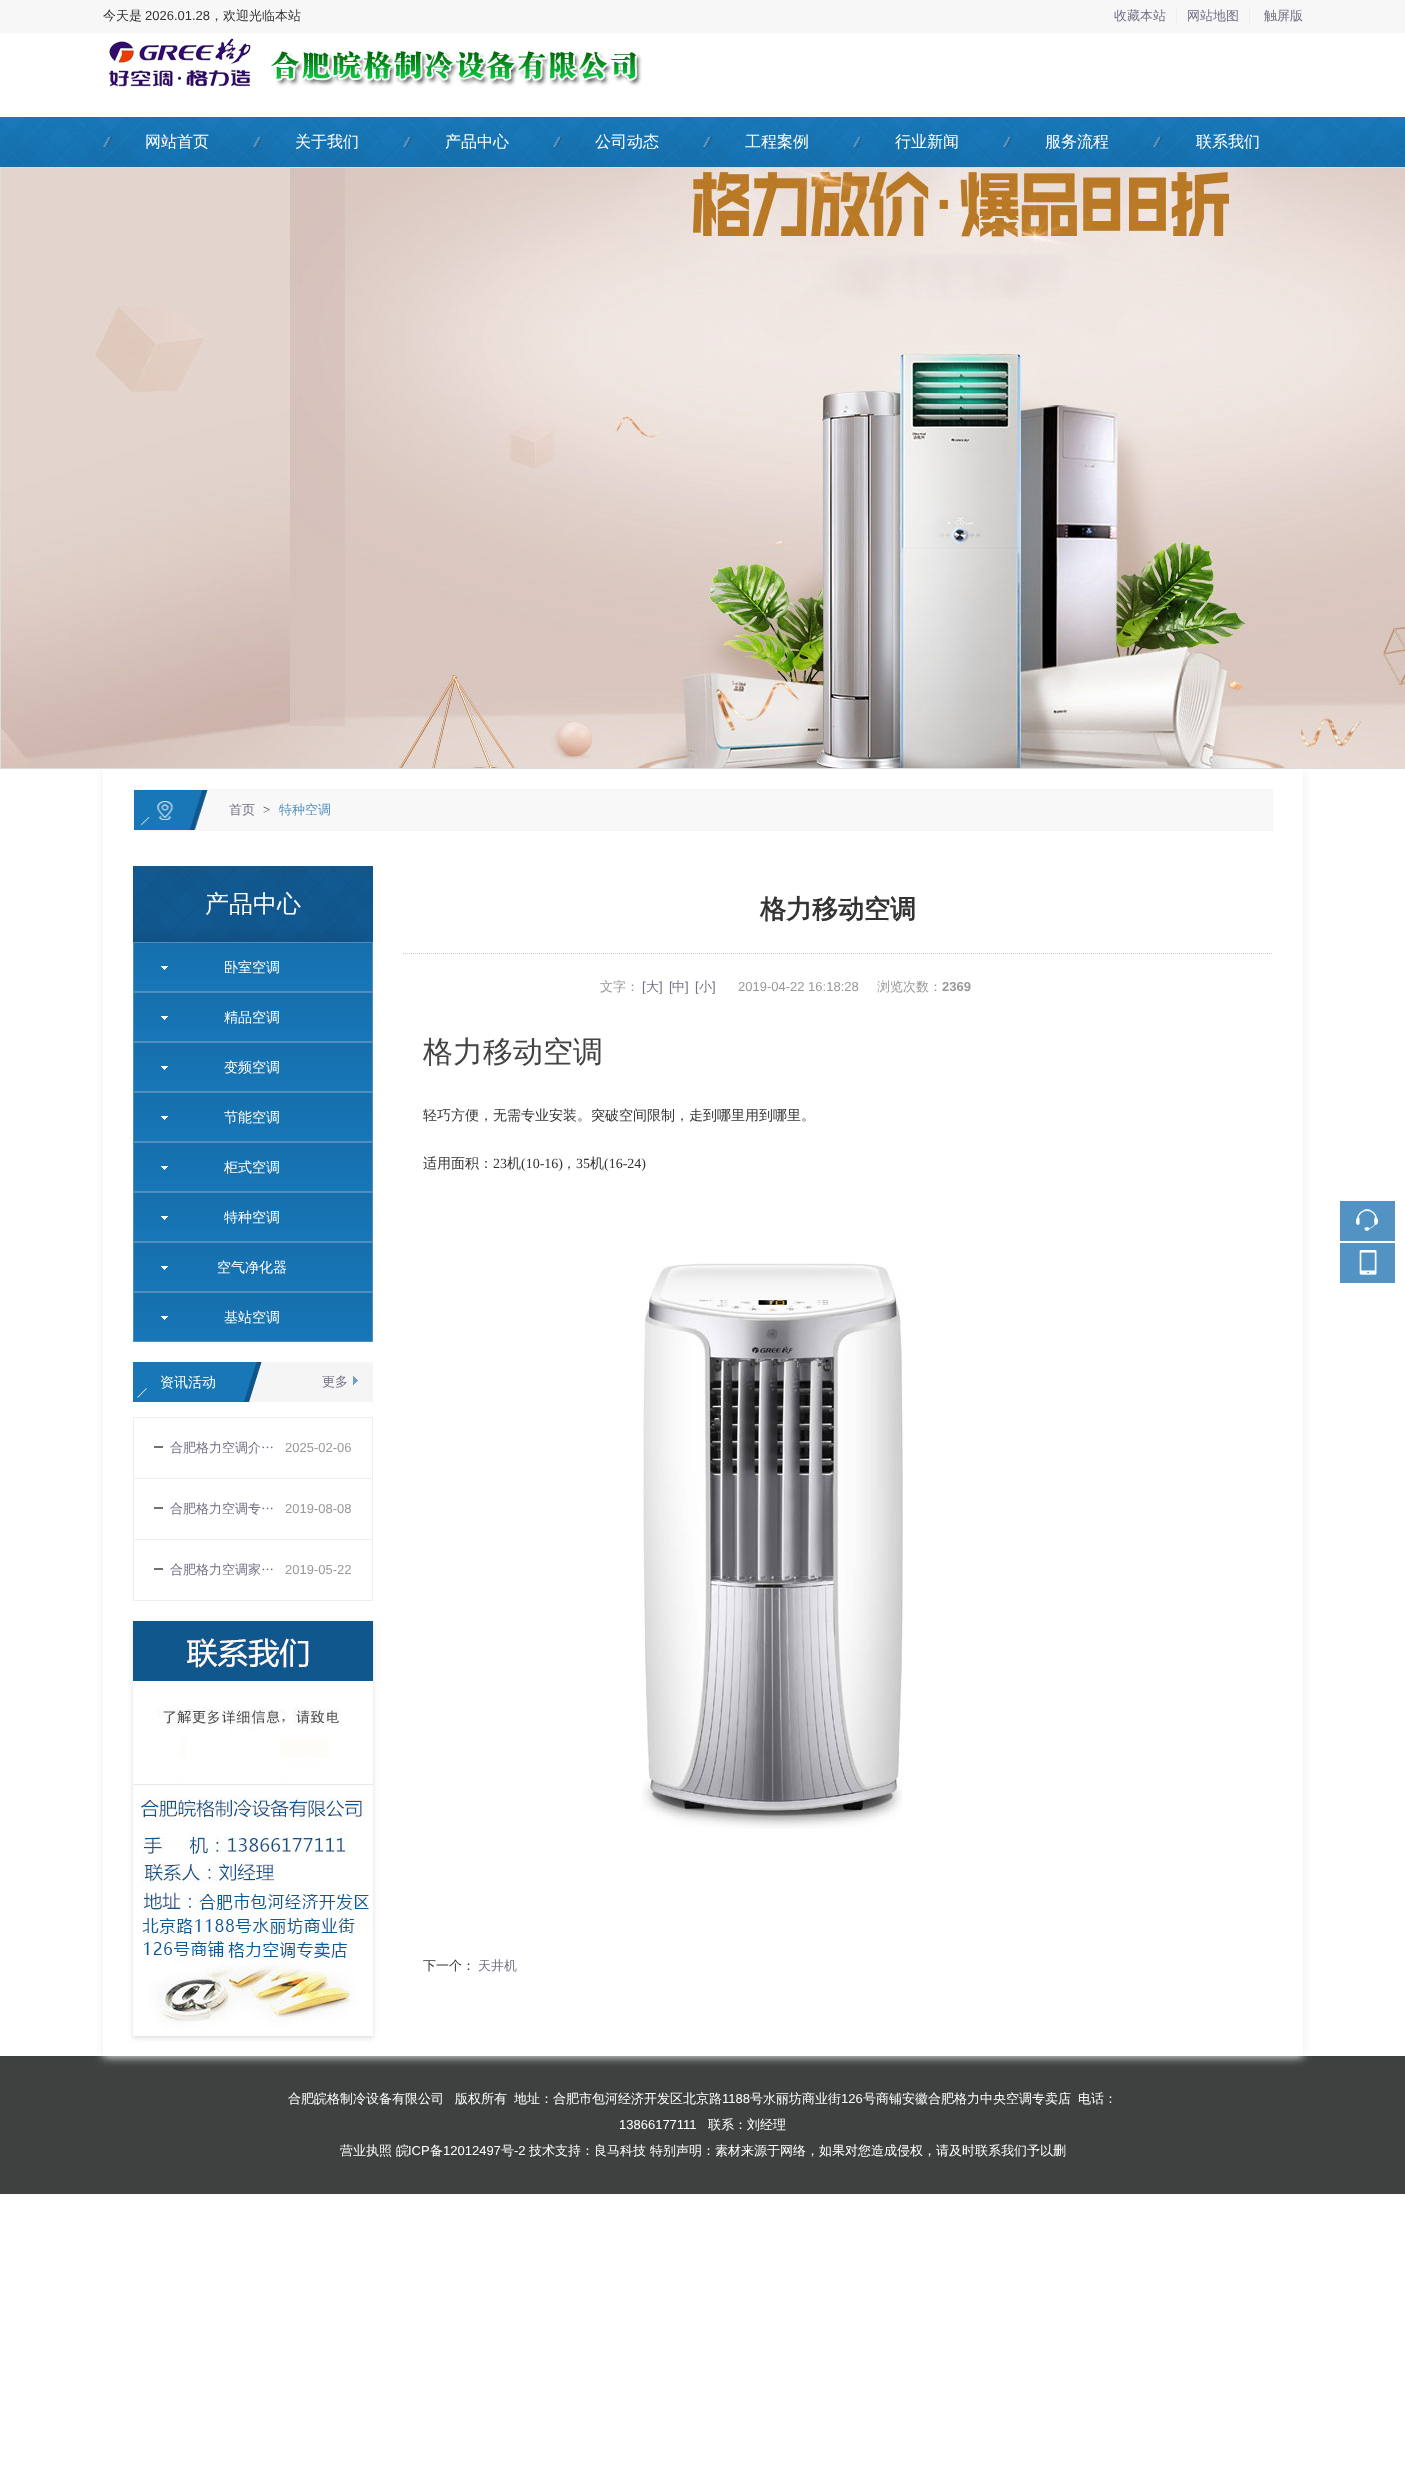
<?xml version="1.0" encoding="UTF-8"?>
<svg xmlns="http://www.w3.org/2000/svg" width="1405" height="2487">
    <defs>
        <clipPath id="clip1"><path d="M 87 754 H 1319 V 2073 H 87 Z M 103 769 H 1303 V 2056 H 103 Z" clip-rule="evenodd"/></clipPath>
        <filter id="blur1" x="-50%" y="-200%" width="200%" height="500%"><feGaussianBlur stdDeviation="5"/></filter>
        <linearGradient id="g1" gradientUnits="userSpaceOnUse" x1="253" y1="943" x2="253" y2="991"><stop offset="0" stop-color="#166FAC"/><stop offset="1" stop-color="#1877B8"/></linearGradient>
        <linearGradient id="g2" gradientUnits="userSpaceOnUse" x1="253" y1="993" x2="253" y2="1041"><stop offset="0" stop-color="#166FAC"/><stop offset="1" stop-color="#1877B8"/></linearGradient>
        <linearGradient id="g3" gradientUnits="userSpaceOnUse" x1="253" y1="1043" x2="253" y2="1091"><stop offset="0" stop-color="#166FAC"/><stop offset="1" stop-color="#1877B8"/></linearGradient>
        <linearGradient id="g4" gradientUnits="userSpaceOnUse" x1="253" y1="1093" x2="253" y2="1141"><stop offset="0" stop-color="#166FAC"/><stop offset="1" stop-color="#1877B8"/></linearGradient>
        <linearGradient id="g5" gradientUnits="userSpaceOnUse" x1="253" y1="1143" x2="253" y2="1191"><stop offset="0" stop-color="#166FAC"/><stop offset="1" stop-color="#1877B8"/></linearGradient>
        <linearGradient id="g6" gradientUnits="userSpaceOnUse" x1="253" y1="1193" x2="253" y2="1241"><stop offset="0" stop-color="#166FAC"/><stop offset="1" stop-color="#1877B8"/></linearGradient>
        <linearGradient id="g7" gradientUnits="userSpaceOnUse" x1="253" y1="1243" x2="253" y2="1291"><stop offset="0" stop-color="#166FAC"/><stop offset="1" stop-color="#1877B8"/></linearGradient>
        <linearGradient id="g8" gradientUnits="userSpaceOnUse" x1="253" y1="1293" x2="253" y2="1341"><stop offset="0" stop-color="#166FAC"/><stop offset="1" stop-color="#1877B8"/></linearGradient>
        <filter id="blur2" x="-50%" y="-200%" width="200%" height="500%"><feGaussianBlur stdDeviation="2.5"/></filter>
    </defs>
    <rect width="100%" height="100%" fill="#FFFFFF"/>
    <rect x="0" y="0" width="1405" height="33" fill="#F7F7F7"/>
    <text x="103" y="20" font-family="WenQuanYi Zen Hei" font-size="13" font-weight="500" fill="#333333">今天是</text>
    <text x="145" y="20" font-family="Liberation Sans" font-size="13" fill="#333333">2026.01.28</text>
    <text x="210" y="20" font-family="WenQuanYi Zen Hei" font-size="13" font-weight="500" fill="#333333">，欢迎光临本站</text>
    <text x="1114" y="20" font-family="WenQuanYi Zen Hei" font-size="13" font-weight="500" fill="#727084">收藏本站</text>
    <rect x="1176" y="8" width="1" height="15" fill="#EDEDED"/>
    <text x="1187" y="20" font-family="WenQuanYi Zen Hei" font-size="13" font-weight="500" fill="#727084">网站地图</text>
    <rect x="1249" y="8" width="1" height="15" fill="#EDEDED"/>
    <text x="1264" y="20" font-family="WenQuanYi Zen Hei" font-size="13" font-weight="500" fill="#727084">触屏版</text>
    <image x="109" y="38" width="533" height="49" href="img_01.png"/>
    <image x="0" y="117" width="1405" height="50" href="img_02.png"/>
    <image x="103" y="137" width="9" height="10" href="img_03.png"/>
    <text x="145" y="147" font-family="WenQuanYi Zen Hei" font-size="16" font-weight="500" fill="#FFFFFF">网站首页</text>
    <image x="253" y="137" width="9" height="10" href="img_04.png"/>
    <text x="295" y="147" font-family="WenQuanYi Zen Hei" font-size="16" font-weight="500" fill="#FFFFFF">关于我们</text>
    <image x="403" y="137" width="9" height="10" href="img_05.png"/>
    <text x="445" y="147" font-family="WenQuanYi Zen Hei" font-size="16" font-weight="500" fill="#FFFFFF">产品中心</text>
    <image x="553" y="137" width="9" height="10" href="img_06.png"/>
    <text x="595" y="147" font-family="WenQuanYi Zen Hei" font-size="16" font-weight="500" fill="#FFFFFF">公司动态</text>
    <image x="703" y="137" width="9" height="10" href="img_07.png"/>
    <text x="745" y="147" font-family="WenQuanYi Zen Hei" font-size="16" font-weight="500" fill="#FFFFFF">工程案例</text>
    <image x="853" y="137" width="9" height="10" href="img_08.png"/>
    <text x="895" y="147" font-family="WenQuanYi Zen Hei" font-size="16" font-weight="500" fill="#FFFFFF">行业新闻</text>
    <image x="1003" y="137" width="9" height="10" href="img_09.png"/>
    <text x="1045" y="147" font-family="WenQuanYi Zen Hei" font-size="16" font-weight="500" fill="#FFFFFF">服务流程</text>
    <image x="1153" y="137" width="9" height="10" href="img_10.png"/>
    <text x="1196" y="147" font-family="WenQuanYi Zen Hei" font-size="16" font-weight="500" fill="#FFFFFF">联系我们</text>
    <rect x="0" y="2056" width="1405" height="138" fill="#3F4040"/>
    <g clip-path="url(#clip1)">
        <rect x="103" y="770" width="1200" height="1287" fill="#EEEEEE" filter="url(#blur1)"/>
    </g>
    <rect x="0.5" y="167.5" width="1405" height="601" fill="none" stroke="#DDDDDD"/>
    <image x="1" y="168" width="1404" height="600" href="img_11.png"/>
    <rect x="194" y="790" width="1078" height="40" fill="#F9F8F8"/>
    <rect x="133.5" y="789.5" width="1139" height="41" fill="none" stroke="#FAF5F0"/>
    <image x="134" y="790" width="74" height="40" href="img_12.png"/>
    <text x="229" y="814" font-family="WenQuanYi Zen Hei" font-size="13" font-weight="500" fill="#727084">首页</text>
    <text x="263" y="814" font-family="Liberation Serif" font-size="13" fill="#333333">&gt;</text>
    <text x="279" y="814" font-family="WenQuanYi Zen Hei" font-size="13" font-weight="500" fill="#5191C0">特种空调</text>
    <image x="133" y="866" width="240" height="76" href="img_13.png"/>
    <text x="205" y="912" font-family="WenQuanYi Zen Hei" font-size="24" font-weight="500" fill="#FFFFFF">产品中心</text>
    <rect x="134" y="943" width="238" height="48" fill="url(#g1)"/>
    <rect x="133.5" y="942.5" width="239" height="49" fill="none" stroke="#4F8FBE"/>
    <image x="161" y="966" width="7" height="4" href="img_14.png"/>
    <text x="224" y="972" font-family="WenQuanYi Zen Hei" font-size="14" font-weight="500" fill="#FFFFFF">卧室空调</text>
    <rect x="134" y="993" width="238" height="48" fill="url(#g2)"/>
    <rect x="133.5" y="992.5" width="239" height="49" fill="none" stroke="#4F8FBE"/>
    <image x="161" y="1016" width="7" height="4" href="img_14.png"/>
    <text x="224" y="1022" font-family="WenQuanYi Zen Hei" font-size="14" font-weight="500" fill="#FFFFFF">精品空调</text>
    <rect x="134" y="1043" width="238" height="48" fill="url(#g3)"/>
    <rect x="133.5" y="1042.5" width="239" height="49" fill="none" stroke="#4F8FBE"/>
    <image x="161" y="1066" width="7" height="4" href="img_14.png"/>
    <text x="224" y="1072" font-family="WenQuanYi Zen Hei" font-size="14" font-weight="500" fill="#FFFFFF">变频空调</text>
    <rect x="134" y="1093" width="238" height="48" fill="url(#g4)"/>
    <rect x="133.5" y="1092.5" width="239" height="49" fill="none" stroke="#4F8FBE"/>
    <image x="161" y="1116" width="7" height="4" href="img_14.png"/>
    <text x="224" y="1122" font-family="WenQuanYi Zen Hei" font-size="14" font-weight="500" fill="#FFFFFF">节能空调</text>
    <rect x="134" y="1143" width="238" height="48" fill="url(#g5)"/>
    <rect x="133.5" y="1142.5" width="239" height="49" fill="none" stroke="#4F8FBE"/>
    <image x="161" y="1166" width="7" height="4" href="img_14.png"/>
    <text x="224" y="1172" font-family="WenQuanYi Zen Hei" font-size="14" font-weight="500" fill="#FFFFFF">柜式空调</text>
    <rect x="134" y="1193" width="238" height="48" fill="url(#g6)"/>
    <rect x="133.5" y="1192.5" width="239" height="49" fill="none" stroke="#4F8FBE"/>
    <image x="161" y="1216" width="7" height="4" href="img_14.png"/>
    <text x="224" y="1222" font-family="WenQuanYi Zen Hei" font-size="14" font-weight="500" fill="#FFFFFF">特种空调</text>
    <rect x="134" y="1243" width="238" height="48" fill="url(#g7)"/>
    <rect x="133.5" y="1242.5" width="239" height="49" fill="none" stroke="#4F8FBE"/>
    <image x="161" y="1266" width="7" height="4" href="img_14.png"/>
    <text x="217" y="1272" font-family="WenQuanYi Zen Hei" font-size="14" font-weight="500" fill="#FFFFFF">空气净化器</text>
    <rect x="134" y="1293" width="238" height="48" fill="url(#g8)"/>
    <rect x="133.5" y="1292.5" width="239" height="49" fill="none" stroke="#4F8FBE"/>
    <image x="161" y="1316" width="7" height="4" href="img_14.png"/>
    <text x="224" y="1322" font-family="WenQuanYi Zen Hei" font-size="14" font-weight="500" fill="#FFFFFF">基站空调</text>
    <rect x="249" y="1362" width="124" height="40" fill="#F5F5F5"/>
    <image x="133" y="1362" width="129" height="40" href="img_15.png"/>
    <text x="160" y="1387" font-family="WenQuanYi Zen Hei" font-size="14" font-weight="500" fill="#FFFFFF">资讯活动</text>
    <path d="M 146 1388.5 H 147 L 138 1397.5 H 137 Z" fill="#FFFFFF"/>
    <image x="353" y="1376" width="5" height="9" href="img_16.png"/>
    <text x="322" y="1386" font-family="WenQuanYi Zen Hei" font-size="13" font-weight="500" fill="#727084">更多</text>
    <rect x="133" y="1600" width="240" height="1" fill="#EEEEEE"/>
    <rect x="133" y="1417" width="240" height="1" fill="#EEEEEE"/>
    <rect x="372" y="1417" width="1" height="61" fill="#EEEEEE"/>
    <rect x="133" y="1417" width="1" height="61" fill="#EEEEEE"/>
    <rect x="154" y="1446" width="9" height="2" fill="#727272"/>
    <text x="170" y="1452" font-family="WenQuanYi Zen Hei" font-size="13" font-weight="500" fill="#727084">合肥格力空调介…</text>
    <text x="285" y="1452" font-family="Liberation Sans" font-size="13" fill="#999999">2025-02-06</text>
    <rect x="133" y="1478" width="240" height="1" fill="#EEEEEE"/>
    <rect x="372" y="1478" width="1" height="61" fill="#EEEEEE"/>
    <rect x="133" y="1478" width="1" height="61" fill="#EEEEEE"/>
    <rect x="154" y="1507" width="9" height="2" fill="#727272"/>
    <text x="170" y="1513" font-family="WenQuanYi Zen Hei" font-size="13" font-weight="500" fill="#727084">合肥格力空调专…</text>
    <text x="285" y="1513" font-family="Liberation Sans" font-size="13" fill="#999999">2019-08-08</text>
    <rect x="133" y="1539" width="240" height="1" fill="#EEEEEE"/>
    <rect x="372" y="1539" width="1" height="61" fill="#EEEEEE"/>
    <rect x="133" y="1539" width="1" height="61" fill="#EEEEEE"/>
    <rect x="154" y="1568" width="9" height="2" fill="#727272"/>
    <text x="170" y="1574" font-family="WenQuanYi Zen Hei" font-size="13" font-weight="500" fill="#727084">合肥格力空调家…</text>
    <text x="285" y="1574" font-family="Liberation Sans" font-size="13" fill="#999999">2019-05-22</text>
    <rect x="133" y="1623" width="240" height="415" fill="#DDDDDD" filter="url(#blur2)"/>
    <image x="133" y="1621" width="240" height="415" href="img_17.png"/>
    <path d="M 403 953.5 H 1273" fill="none" stroke="#CCCCCC" stroke-dasharray="1 1"/>
    <text x="760" y="918" font-family="WenQuanYi Zen Hei" font-size="26" font-weight="700" fill="#333333">格力移动空调</text>
    <text x="600" y="991" font-family="WenQuanYi Zen Hei" font-size="13" font-weight="500" fill="#999999">文字：</text>
    <text x="642" y="991" font-family="Liberation Sans" font-size="13" fill="#727084">[</text>
    <text x="646" y="991" font-family="WenQuanYi Zen Hei" font-size="13" font-weight="500" fill="#727084">大</text>
    <text x="659" y="991" font-family="Liberation Sans" font-size="13" fill="#727084">]</text>
    <text x="669" y="991" font-family="Liberation Sans" font-size="13" fill="#727084">[</text>
    <text x="672" y="991" font-family="WenQuanYi Zen Hei" font-size="13" font-weight="500" fill="#727084">中</text>
    <text x="685" y="991" font-family="Liberation Sans" font-size="13" fill="#727084">]</text>
    <text x="695" y="991" font-family="Liberation Sans" font-size="13" fill="#727084">[</text>
    <text x="699" y="991" font-family="WenQuanYi Zen Hei" font-size="13" font-weight="500" fill="#727084">小</text>
    <text x="712" y="991" font-family="Liberation Sans" font-size="13" fill="#727084">]</text>
    <text x="738" y="991" font-family="Liberation Sans" font-size="13" fill="#999999">2019-04-22 16:18:28</text>
    <text x="877" y="991" font-family="WenQuanYi Zen Hei" font-size="13" font-weight="500" fill="#999999">浏览次数：</text>
    <text x="942" y="991" font-family="Liberation Sans" font-size="13" font-weight="700" fill="#999999">2369</text>
    <text x="423" y="1062" font-family="WenQuanYi Zen Hei" font-size="30" font-weight="500" fill="#434343">格力移动空调</text>
    <text x="423" y="1120" font-family="WenQuanYi Zen Hei" font-size="14" font-weight="500" fill="#333333">轻巧方便，无需专业安装。突破空间限制，走到哪里用到哪里。</text>
    <text x="423" y="1168" font-family="WenQuanYi Zen Hei" font-size="14" font-weight="500" fill="#333333">适用面积：</text>
    <text x="493" y="1168" font-family="Liberation Serif" font-size="14" fill="#333333">23</text>
    <text x="507" y="1168" font-family="WenQuanYi Zen Hei" font-size="14" font-weight="500" fill="#333333">机</text>
    <text x="521" y="1168" font-family="Liberation Serif" font-size="14" fill="#333333">(10-16)</text>
    <text x="562" y="1168" font-family="WenQuanYi Zen Hei" font-size="14" font-weight="500" fill="#333333">，</text>
    <text x="576" y="1168" font-family="Liberation Serif" font-size="14" fill="#333333">35</text>
    <text x="590" y="1168" font-family="WenQuanYi Zen Hei" font-size="14" font-weight="500" fill="#333333">机</text>
    <text x="604" y="1168" font-family="Liberation Serif" font-size="14" fill="#333333">(16-24)</text>
    <image x="642" y="1263" width="261" height="566" href="img_18.png"/>
    <text x="423" y="1970" font-family="WenQuanYi Zen Hei" font-size="13" font-weight="500" fill="#333333">下一个：</text>
    <text x="478" y="1970" font-family="WenQuanYi Zen Hei" font-size="13" font-weight="500" fill="#727084">天井机</text>
    <rect x="1340" y="1201" width="55" height="40" fill="#5293C3"/>
    <image x="1356" y="1209" width="22" height="22" href="img_19.png"/>
    <rect x="1340" y="1243" width="55" height="40" fill="#5293C3"/>
    <image x="1359" y="1250" width="18" height="25" href="img_20.png"/>
    <text x="288" y="2103" font-family="WenQuanYi Zen Hei" font-size="13" font-weight="500" fill="#FFFFFF">合肥皖格制冷设备有限公司</text>
    <text x="455" y="2103" font-family="WenQuanYi Zen Hei" font-size="13" font-weight="500" fill="#FFFFFF">版权所有</text>
    <text x="514" y="2103" font-family="WenQuanYi Zen Hei" font-size="13" font-weight="500" fill="#FFFFFF">地址：合肥市包河经济开发区北京路</text>
    <text x="722" y="2103" font-family="Liberation Sans" font-size="13" fill="#FFFFFF">1188</text>
    <text x="750" y="2103" font-family="WenQuanYi Zen Hei" font-size="13" font-weight="500" fill="#FFFFFF">号水丽坊商业街</text>
    <text x="841" y="2103" font-family="Liberation Sans" font-size="13" fill="#FFFFFF">126</text>
    <text x="863" y="2103" font-family="WenQuanYi Zen Hei" font-size="13" font-weight="500" fill="#FFFFFF">号商铺安徽合肥格力中央空调专卖店</text>
    <text x="1078" y="2103" font-family="WenQuanYi Zen Hei" font-size="13" font-weight="500" fill="#FFFFFF">电话：</text>
    <text x="619" y="2129" font-family="Liberation Sans" font-size="13" fill="#FFFFFF">13866177111</text>
    <text x="708" y="2129" font-family="WenQuanYi Zen Hei" font-size="13" font-weight="500" fill="#FFFFFF">联系：刘经理</text>
    <text x="340" y="2155" font-family="WenQuanYi Zen Hei" font-size="13" font-weight="500" fill="#FFFFFF">营业执照 皖</text>
    <text x="408" y="2155" font-family="Liberation Sans" font-size="13" fill="#FFFFFF">ICP</text>
    <text x="430" y="2155" font-family="WenQuanYi Zen Hei" font-size="13" font-weight="500" fill="#FFFFFF">备</text>
    <text x="443" y="2155" font-family="Liberation Sans" font-size="13" fill="#FFFFFF">12012497</text>
    <text x="501" y="2155" font-family="WenQuanYi Zen Hei" font-size="13" font-weight="500" fill="#FFFFFF">号</text>
    <text x="514" y="2155" font-family="Liberation Sans" font-size="13" fill="#FFFFFF">-2</text>
    <text x="529" y="2155" font-family="WenQuanYi Zen Hei" font-size="13" font-weight="500" fill="#FFFFFF">技术支持：良马科技 特别声明：素材来源于网络，如果对您造成侵权，请及时联系我们予以删</text>
</svg>
